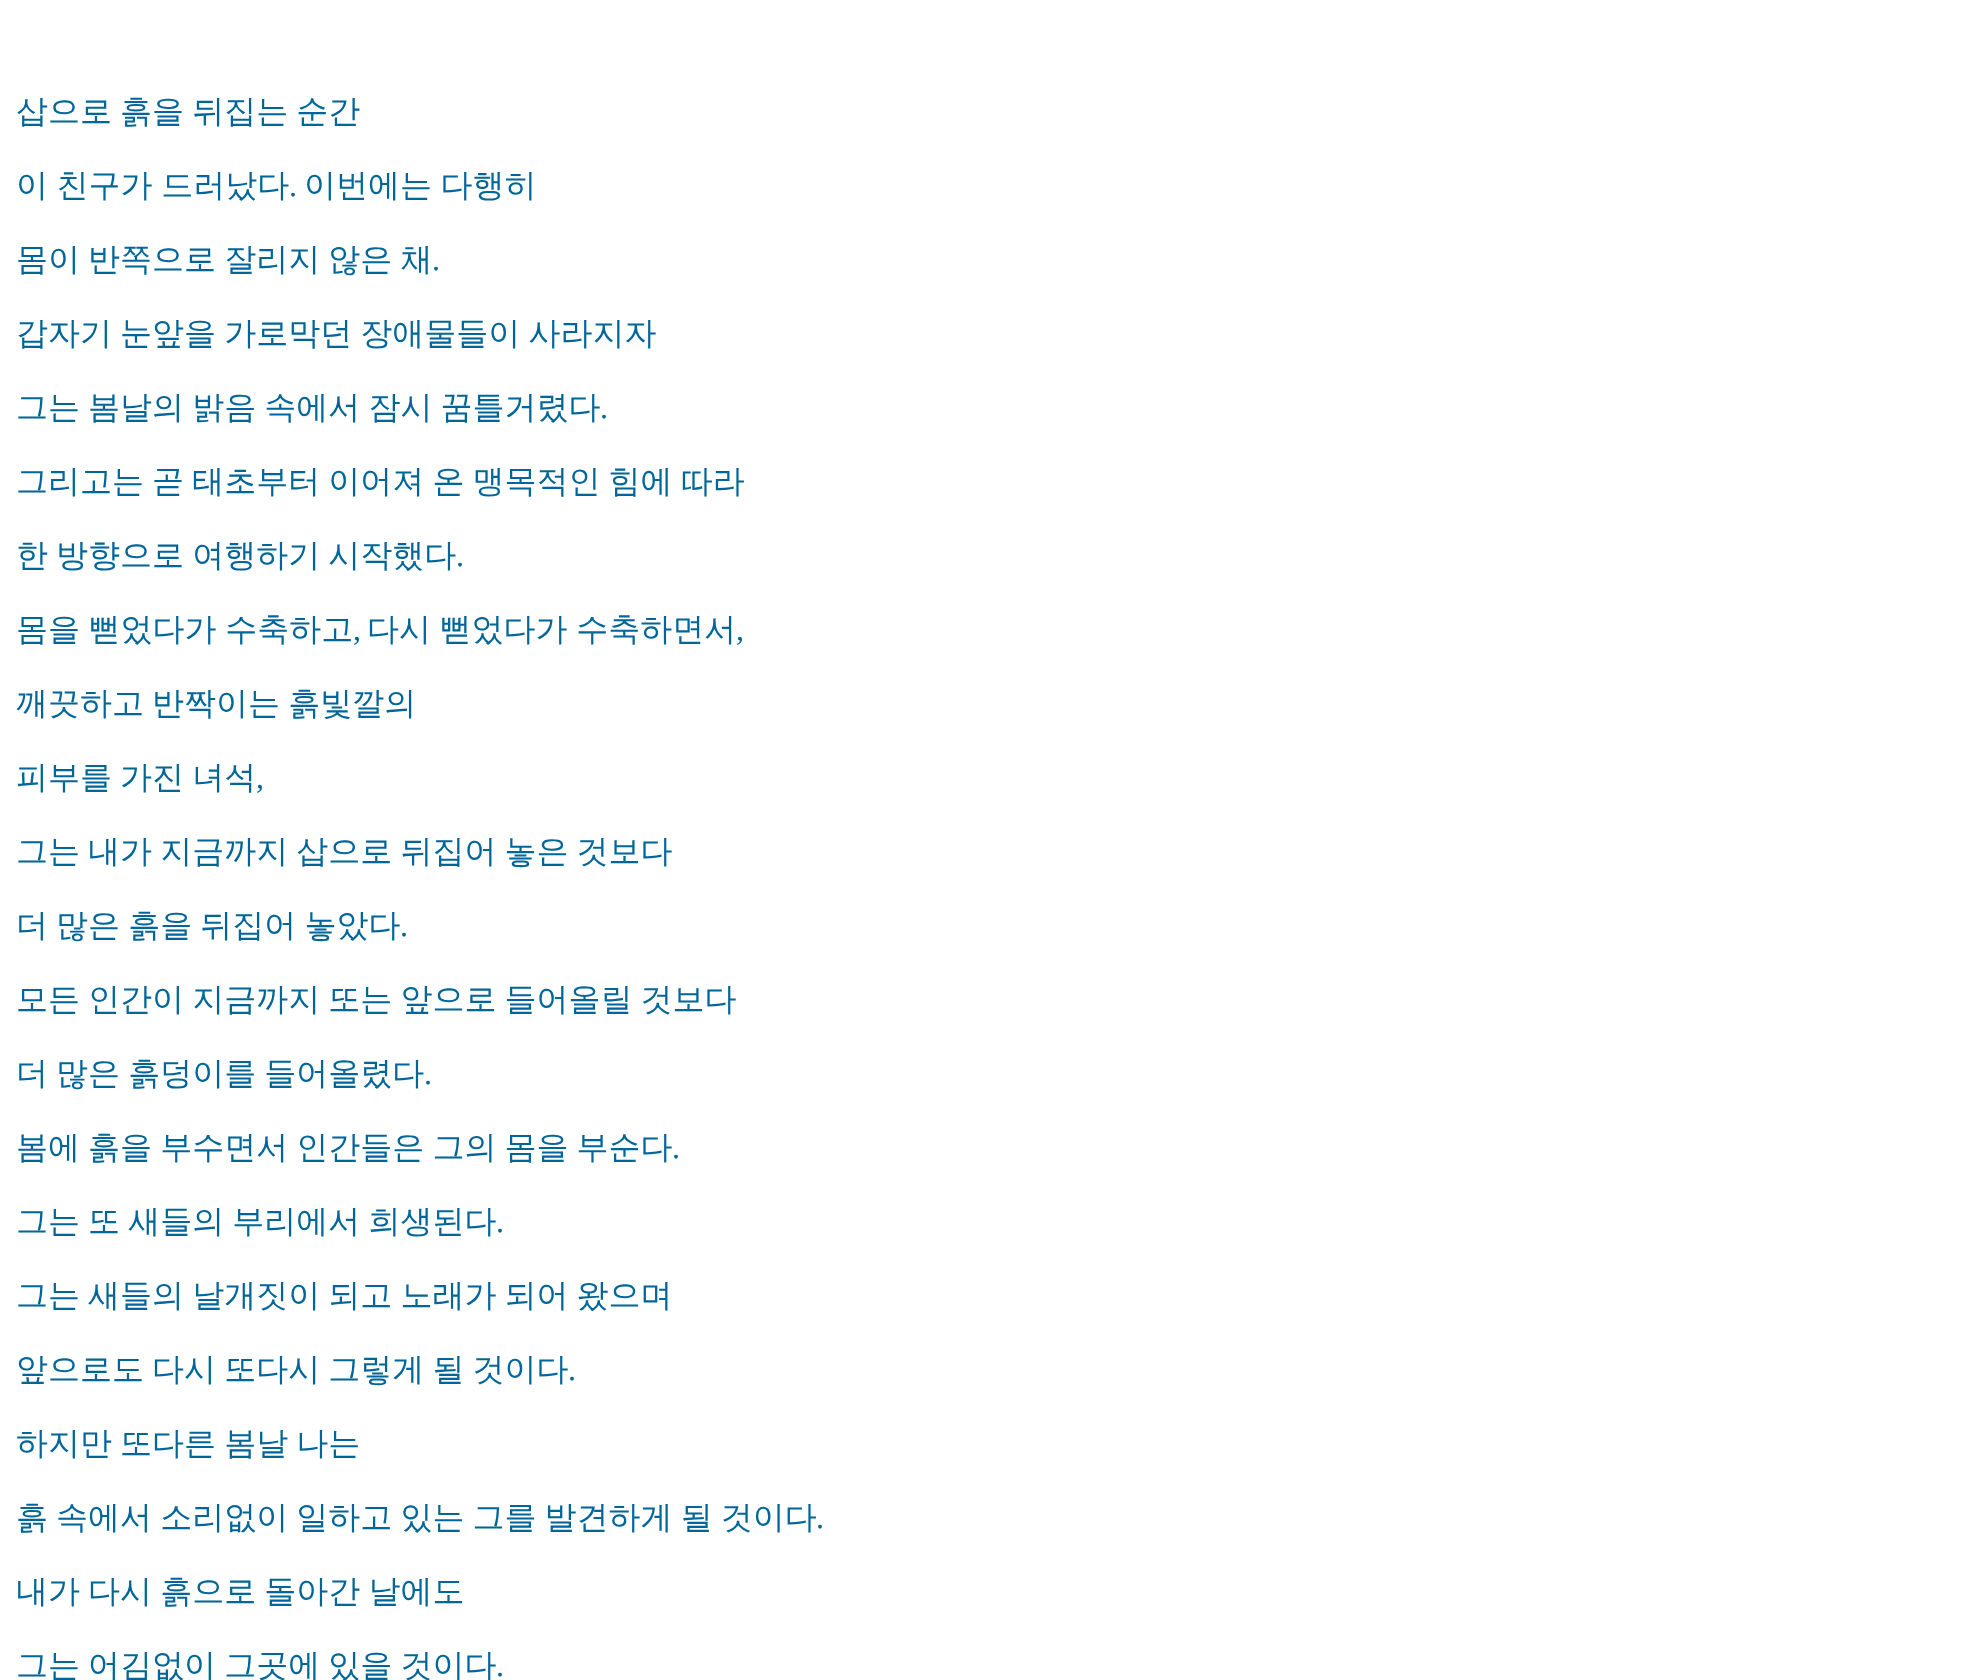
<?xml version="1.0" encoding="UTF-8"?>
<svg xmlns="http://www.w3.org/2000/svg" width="1986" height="1680">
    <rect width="100%" height="100%" fill="#FFFFFF"/>
    <text x="16" y="122" word-spacing="-1.5" font-family="WenQuanYi Zen Hei" font-size="32" font-weight="500" fill="#006699">삽으로 흙을 뒤집는 순간</text>
    <text x="16" y="196" word-spacing="-1" font-family="WenQuanYi Zen Hei" font-size="32" font-weight="500" fill="#006699">이 친구가 드러났다</text>
    <text x="289" y="196" font-family="Liberation Serif" font-size="32" fill="#006699">.</text>
    <text x="304" y="196" word-spacing="-1" font-family="WenQuanYi Zen Hei" font-size="32" font-weight="500" fill="#006699">이번에는 다행히</text>
    <text x="16" y="270" word-spacing="-1.5" font-family="WenQuanYi Zen Hei" font-size="32" font-weight="500" fill="#006699">몸이 반쪽으로 잘리지 않은 채</text>
    <text x="432" y="270" font-family="Liberation Serif" font-size="32" fill="#006699">.</text>
    <text x="16" y="344" word-spacing="-1.5" font-family="WenQuanYi Zen Hei" font-size="32" font-weight="500" fill="#006699">갑자기 눈앞을 가로막던 장애물들이 사라지자</text>
    <text x="16" y="418" word-spacing="-1.5" font-family="WenQuanYi Zen Hei" font-size="32" font-weight="500" fill="#006699">그는 봄날의 밝음 속에서 잠시 꿈틀거렸다</text>
    <text x="600" y="418" font-family="Liberation Serif" font-size="32" fill="#006699">.</text>
    <text x="16" y="492" word-spacing="-1.5" font-family="WenQuanYi Zen Hei" font-size="32" font-weight="500" fill="#006699">그리고는 곧 태초부터 이어져 온 맹목적인 힘에 따라</text>
    <text x="16" y="566" word-spacing="-1.5" font-family="WenQuanYi Zen Hei" font-size="32" font-weight="500" fill="#006699">한 방향으로 여행하기 시작했다</text>
    <text x="456" y="566" font-family="Liberation Serif" font-size="32" fill="#006699">.</text>
    <text x="16" y="640" word-spacing="-1" font-family="WenQuanYi Zen Hei" font-size="32" font-weight="500" fill="#006699">몸을 뻗었다가 수축하고</text>
    <text x="353" y="640" font-family="Liberation Serif" font-size="32" fill="#006699">,</text>
    <text x="367" y="640" word-spacing="-1" font-family="WenQuanYi Zen Hei" font-size="32" font-weight="500" fill="#006699">다시 뻗었다가 수축하면서</text>
    <text x="736" y="640" font-family="Liberation Serif" font-size="32" fill="#006699">,</text>
    <text x="16" y="714" word-spacing="-1.5" font-family="WenQuanYi Zen Hei" font-size="32" font-weight="500" fill="#006699">깨끗하고 반짝이는 흙빛깔의</text>
    <text x="16" y="788" word-spacing="-1.5" font-family="WenQuanYi Zen Hei" font-size="32" font-weight="500" fill="#006699">피부를 가진 녀석</text>
    <text x="256" y="788" font-family="Liberation Serif" font-size="32" fill="#006699">,</text>
    <text x="16" y="862" word-spacing="-1.5" font-family="WenQuanYi Zen Hei" font-size="32" font-weight="500" fill="#006699">그는 내가 지금까지 삽으로 뒤집어 놓은 것보다</text>
    <text x="16" y="936" word-spacing="-1.5" font-family="WenQuanYi Zen Hei" font-size="32" font-weight="500" fill="#006699">더 많은 흙을 뒤집어 놓았다</text>
    <text x="400" y="936" font-family="Liberation Serif" font-size="32" fill="#006699">.</text>
    <text x="16" y="1010" word-spacing="-1.5" font-family="WenQuanYi Zen Hei" font-size="32" font-weight="500" fill="#006699">모든 인간이 지금까지 또는 앞으로 들어올릴 것보다</text>
    <text x="16" y="1084" word-spacing="-1.5" font-family="WenQuanYi Zen Hei" font-size="32" font-weight="500" fill="#006699">더 많은 흙덩이를 들어올렸다</text>
    <text x="424" y="1084" font-family="Liberation Serif" font-size="32" fill="#006699">.</text>
    <text x="16" y="1158" word-spacing="-1.5" font-family="WenQuanYi Zen Hei" font-size="32" font-weight="500" fill="#006699">봄에 흙을 부수면서 인간들은 그의 몸을 부순다</text>
    <text x="672" y="1158" font-family="Liberation Serif" font-size="32" fill="#006699">.</text>
    <text x="16" y="1232" word-spacing="-1.5" font-family="WenQuanYi Zen Hei" font-size="32" font-weight="500" fill="#006699">그는 또 새들의 부리에서 희생된다</text>
    <text x="496" y="1232" font-family="Liberation Serif" font-size="32" fill="#006699">.</text>
    <text x="16" y="1306" word-spacing="-1.5" font-family="WenQuanYi Zen Hei" font-size="32" font-weight="500" fill="#006699">그는 새들의 날개짓이 되고 노래가 되어 왔으며</text>
    <text x="16" y="1380" word-spacing="-1.5" font-family="WenQuanYi Zen Hei" font-size="32" font-weight="500" fill="#006699">앞으로도 다시 또다시 그렇게 될 것이다</text>
    <text x="568" y="1380" font-family="Liberation Serif" font-size="32" fill="#006699">.</text>
    <text x="16" y="1454" word-spacing="-1.5" font-family="WenQuanYi Zen Hei" font-size="32" font-weight="500" fill="#006699">하지만 또다른 봄날 나는</text>
    <text x="16" y="1528" word-spacing="-1.5" font-family="WenQuanYi Zen Hei" font-size="32" font-weight="500" fill="#006699">흙 속에서 소리없이 일하고 있는 그를 발견하게 될 것이다</text>
    <text x="816" y="1528" font-family="Liberation Serif" font-size="32" fill="#006699">.</text>
    <text x="16" y="1602" word-spacing="-1.5" font-family="WenQuanYi Zen Hei" font-size="32" font-weight="500" fill="#006699">내가 다시 흙으로 돌아간 날에도</text>
    <text x="16" y="1676" word-spacing="-1.5" font-family="WenQuanYi Zen Hei" font-size="32" font-weight="500" fill="#006699">그는 어김없이 그곳에 있을 것이다</text>
    <text x="496" y="1676" font-family="Liberation Serif" font-size="32" fill="#006699">.</text>
</svg>
